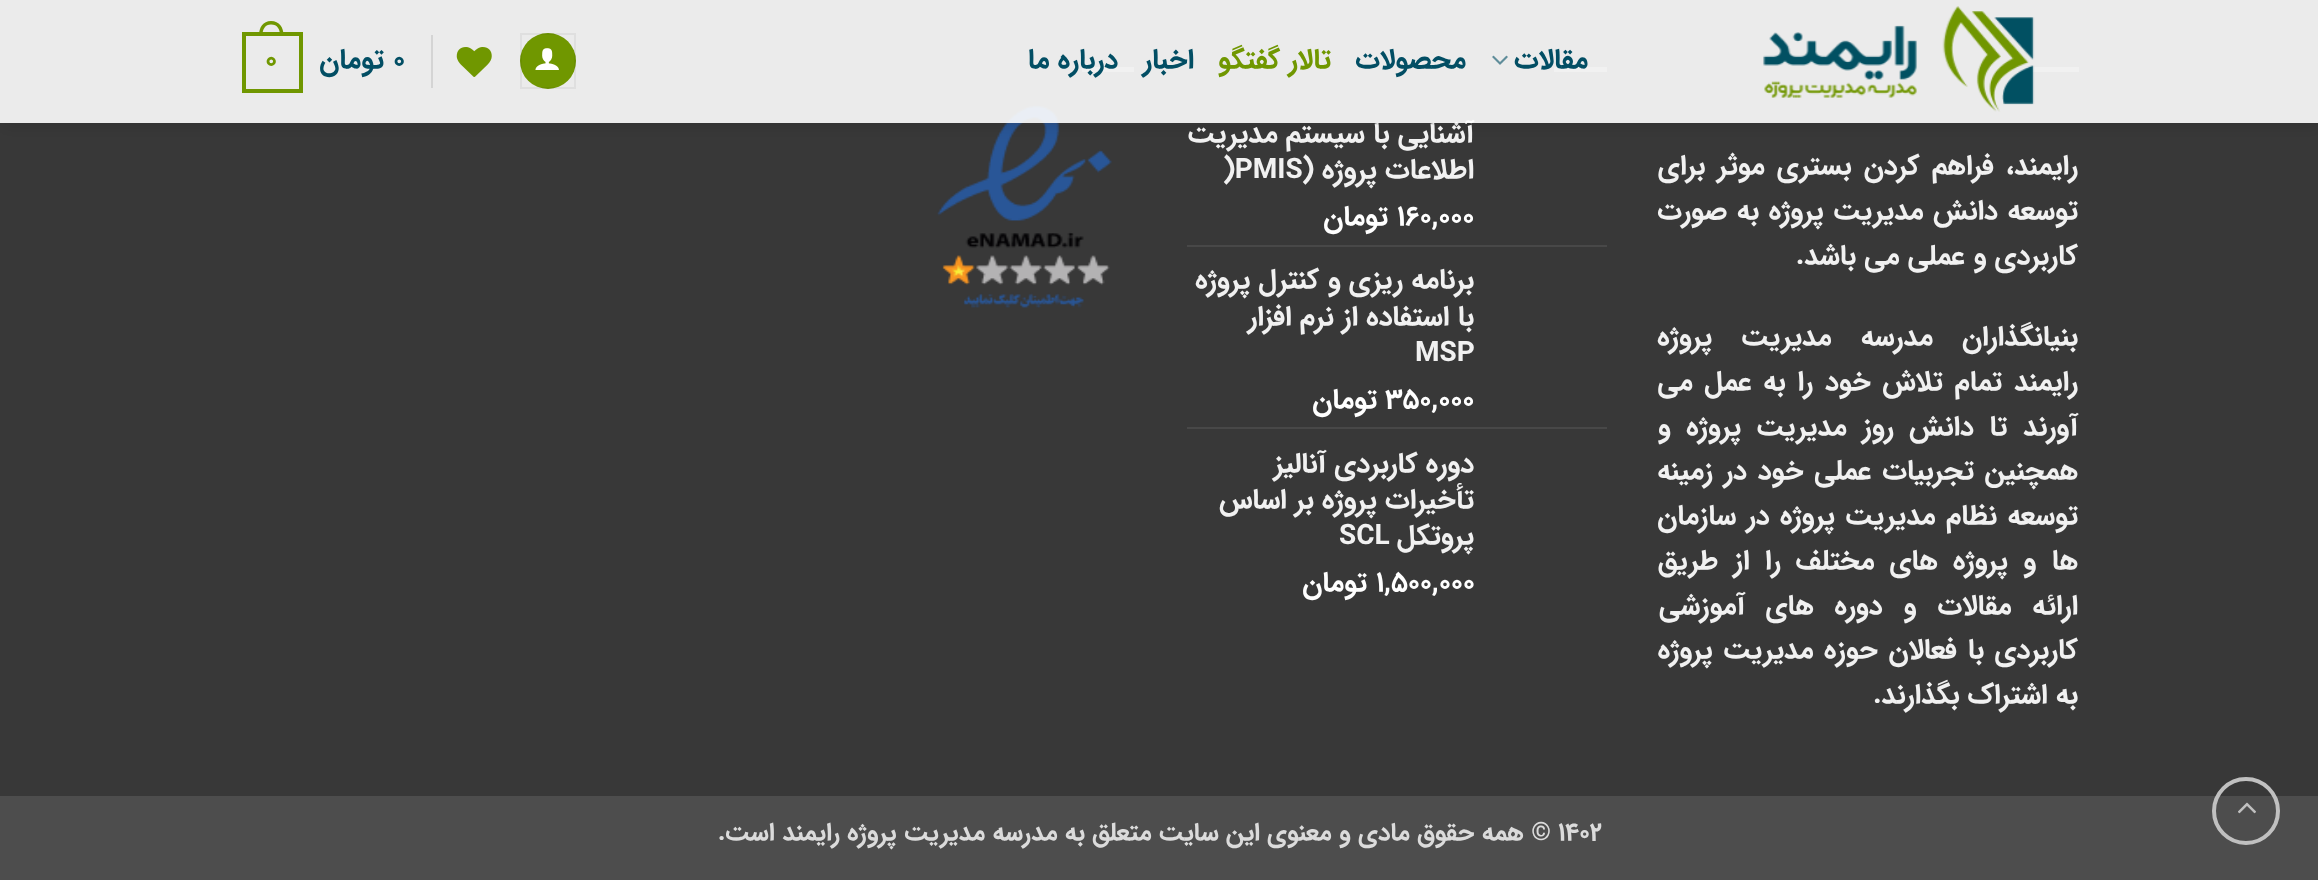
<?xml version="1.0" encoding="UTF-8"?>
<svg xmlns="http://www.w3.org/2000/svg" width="2318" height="880">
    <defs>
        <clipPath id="clip1"><path d="M 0 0 H 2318 V 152 H 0 Z M 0 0 H 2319 V 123 H 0 Z" clip-rule="evenodd"/></clipPath>
        <filter id="blur1" x="-50%" y="-200%" width="200%" height="500%"><feGaussianBlur stdDeviation="9"/></filter>
    </defs>
    <rect width="100%" height="100%" fill="#383838"/>
    <rect x="2027" y="67" width="52" height="5" fill="#747474"/>
    <rect x="1554" y="67" width="53" height="5" fill="#747474"/>
    <rect x="1082" y="67" width="52" height="5" fill="#747474"/>
    <image x="937" y="105" width="175" height="203" href="img_05.png"/>
    <g clip-path="url(#clip1)">
        <rect x="2" y="2" width="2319" height="122" fill="#000000" fill-opacity="0.15" filter="url(#blur1)"/>
    </g>
    <text x="1474" y="142" font-family="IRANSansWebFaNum" font-size="28" font-weight="700" direction="rtl" fill="#F1F1F1">آشنایی با سیستم مدیریت</text>
    <rect x="0" y="0" width="2318" height="123" fill="#FFFFFF" fill-opacity="0.9"/>
    <image x="1763" y="6" width="272" height="106" href="img_01.png"/>
    <text x="1588" y="68" font-family="IRANSansWebFaNum" font-size="28" font-weight="700" direction="rtl" fill="#024E64">مقالات</text>
    <image x="1492" y="55" width="16" height="10" href="img_02.png"/>
    <text x="1466" y="68" font-family="IRANSansWebFaNum" font-size="28" font-weight="700" direction="rtl" fill="#024E64">محصولات</text>
    <text x="1331" y="68" font-family="IRANSansWebFaNum" font-size="28" font-weight="700" direction="rtl" fill="#709700">تالار گفتگو</text>
    <text x="1194" y="68" font-family="IRANSansWebFaNum" font-size="28" font-weight="700" direction="rtl" fill="#024E64">اخبار</text>
    <text x="1118" y="68" font-family="IRANSansWebFaNum" font-size="28" font-weight="700" direction="rtl" fill="#024E64">درباره ما</text>
    <circle cx="548" cy="61" r="28" fill="#709700"/>
    <rect x="521" y="34" width="54" height="54" fill="none" stroke="#000000" stroke-opacity="0.05" stroke-width="2"/>
    <image x="535" y="48" width="24" height="22" href="img_03.png"/>
    <image x="456" y="47" width="36" height="30" href="img_04.png"/>
    <rect x="431" y="35" width="2" height="53" fill="#D4D4D4"/>
    <text x="393" y="68" font-family="IRANSansWebFaNum" font-size="28" font-weight="700" fill="#024E64">0</text>
    <text x="384" y="68" font-family="IRANSansWebFaNum" font-size="28" font-weight="700" direction="rtl" fill="#024E64">تومان</text>
    <rect x="244" y="34" width="57" height="57" fill="none" stroke="#709700" stroke-width="4"/>
    <path d="M 271 21 C 279.5 21 283.5 27.5 283.5 35 H 259 C 259 27.5 263 21 271 21 Z M 271 24.5 C 277.5 24.5 280 29.5 280 35 H 262.5 C 262.5 29.5 265 24.5 271 24.5 Z" fill="#709700" fill-rule="evenodd"/>
    <text x="265" y="68" font-family="IRANSansWebFaNum" font-size="28" font-weight="700" fill="#709700">0</text>
    <rect x="1005" y="123" width="462" height="2" fill="#4A4A4A" fill-opacity="0.1"/>
    <text font-family="IRANSansWebFaNum" font-size="28" font-weight="700" direction="rtl" fill="#F1F1F1">
        <tspan x="2078" y="174" word-spacing="4">رایمند، فراهم کردن بستری موثر برای</tspan>
        <tspan x="2078" y="219" word-spacing="1.5">توسعه دانش مدیریت پروژه به صورت</tspan>
        <tspan x="2078" y="264">کاربردی و عملی می باشد.</tspan>
    </text>
    <text font-family="IRANSansWebFaNum" font-size="28" font-weight="700" direction="rtl" fill="#F1F1F1">
        <tspan x="2078" y="345" word-spacing="21">بنیانگذاران مدرسه مدیریت پروژه</tspan>
        <tspan x="2078" y="390" word-spacing="3.5">رایمند تمام تلاش خود را به عمل می</tspan>
        <tspan x="2078" y="435" word-spacing="7.25">آورند تا دانش روز مدیریت پروژه و</tspan>
        <tspan x="2078" y="479" word-spacing="2.5">همچنین تجربیات عملی خود در زمینه</tspan>
        <tspan x="2078" y="524" word-spacing="2.25">توسعه نظام مدیریت پروژه در سازمان</tspan>
        <tspan x="2078" y="569" word-spacing="7">ها و پروژه های مختلف را از طریق</tspan>
        <tspan x="2078" y="614" word-spacing="12.5">ارائه مقالات و دوره های آموزشی</tspan>
        <tspan x="2078" y="658" word-spacing="2.5">کاربردی با فعالان حوزه مدیریت پروژه</tspan>
        <tspan x="2078" y="703">به اشتراک بگذارند.</tspan>
    </text>
    <text x="1474" y="178" font-family="IRANSansWebFaNum" font-size="28" font-weight="700" direction="rtl" fill="#F1F1F1">اطلاعات پروژه (</text>
    <text x="1223" y="178" font-family="IRANSansWebFaNum" font-size="28" font-weight="700" fill="#F1F1F1">)PMIS</text>
    <text x="1397" y="225" font-family="IRANSansWebFaNum" font-size="28" font-weight="700" fill="#FFFFFF">160,000</text>
    <text x="1388" y="225" font-family="IRANSansWebFaNum" font-size="28" font-weight="700" direction="rtl" fill="#FFFFFF">تومان</text>
    <rect x="1187" y="245" width="420" height="2" fill="#484848"/>
    <text font-family="IRANSansWebFaNum" font-size="28" font-weight="700" direction="rtl" fill="#F1F1F1">
        <tspan x="1474" y="288">برنامه ریزی و کنترل پروژه</tspan>
        <tspan x="1474" y="325">با استفاده از نرم افزار</tspan>
    </text>
    <text x="1415" y="361" font-family="IRANSansWebFaNum" font-size="28" font-weight="700" fill="#F1F1F1">MSP</text>
    <text x="1385" y="408" font-family="IRANSansWebFaNum" font-size="28" font-weight="700" fill="#FFFFFF">350,000</text>
    <text x="1377" y="408" font-family="IRANSansWebFaNum" font-size="28" font-weight="700" direction="rtl" fill="#FFFFFF">تومان</text>
    <rect x="1187" y="427" width="420" height="2" fill="#484848"/>
    <text font-family="IRANSansWebFaNum" font-size="28" font-weight="700" direction="rtl" fill="#F1F1F1">
        <tspan x="1474" y="472">دوره کاربردی آنالیز</tspan>
        <tspan x="1474" y="508">تأخیرات پروژه بر اساس</tspan>
        <tspan x="1474" y="544">پروتکل</tspan>
    </text>
    <text x="1339" y="544" font-family="IRANSansWebFaNum" font-size="28" font-weight="700" fill="#F1F1F1">SCL</text>
    <text x="1376" y="591" font-family="IRANSansWebFaNum" font-size="28" font-weight="700" fill="#FFFFFF">1,500,000</text>
    <text x="1367" y="591" font-family="IRANSansWebFaNum" font-size="28" font-weight="700" direction="rtl" fill="#FFFFFF">تومان</text>
    <rect x="0" y="796" width="2318" height="84" fill="#4D4D4D"/>
    <circle cx="2246" cy="811" r="32" fill="none" stroke="#C0C0C0" stroke-width="4"/>
    <image x="2238" y="802" width="18" height="12" href="img_06.png"/>
    <text x="1558" y="840" font-family="IRANSansWebFaNum" font-size="25.2" font-weight="700" fill="#DBDBDB">1402</text>
    <text x="1551" y="840" font-family="IRANSansWebFaNum" font-size="25.2" font-weight="700" direction="rtl" fill="#DBDBDB">© همه حقوق مادی و معنوی این سایت متعلق به مدرسه مدیریت پروژه رایمند است.</text>
</svg>
